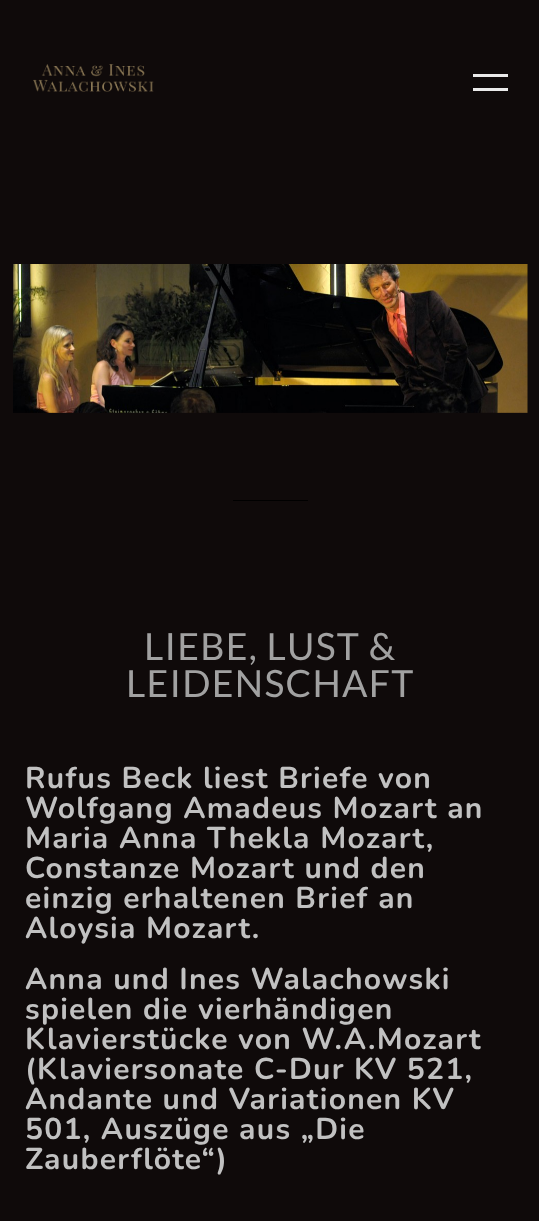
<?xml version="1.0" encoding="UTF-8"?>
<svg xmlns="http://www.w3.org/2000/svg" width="539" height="1221">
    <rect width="100%" height="100%" fill="#0F0A0A"/>
    <image x="33" y="64" width="121" height="28" href="img_01.png"/>
    <rect x="473" y="74" width="35" height="3" fill="#EAEAEA"/>
    <rect x="473" y="88" width="35" height="3" fill="#EAEAEA"/>
    <image x="13" y="264" width="515" height="149" href="img_02.png"/>
    <rect x="233" y="500" width="75" height="1" fill="#000000"/>
    <text x="144" y="660" font-family="Lato" font-size="37.5" letter-spacing="1.25" fill="#A1A1A1">LIEBE, LUST &amp;</text>
    <text x="126" y="697" font-family="Lato" font-size="37.5" letter-spacing="1.25" fill="#A1A1A1">LEIDENSCHAFT</text>
    <text font-family="Nunito" font-size="30" font-weight="700" letter-spacing="1.25" fill="#C1C1C1">
        <tspan x="25" y="788">Rufus Beck liest Briefe von</tspan>
        <tspan x="25" y="818">Wolfgang Amadeus Mozart an</tspan>
        <tspan x="25" y="848">Maria Anna Thekla Mozart,</tspan>
        <tspan x="25" y="878">Constanze Mozart und den</tspan>
        <tspan x="25" y="908">einzig erhaltenen Brief an</tspan>
        <tspan x="25" y="938">Aloysia Mozart.</tspan>
        <tspan x="25" y="989">Anna und Ines Walachowski</tspan>
        <tspan x="25" y="1019">spielen die vierhändigen</tspan>
        <tspan x="25" y="1049">Klavierstücke von W.A.Mozart</tspan>
        <tspan x="25" y="1079">(Klaviersonate C-Dur KV 521,</tspan>
        <tspan x="25" y="1109">Andante und Variationen KV</tspan>
        <tspan x="25" y="1139">501, Auszüge aus „Die</tspan>
        <tspan x="25" y="1169">Zauberflöte“)</tspan>
    </text>
</svg>
